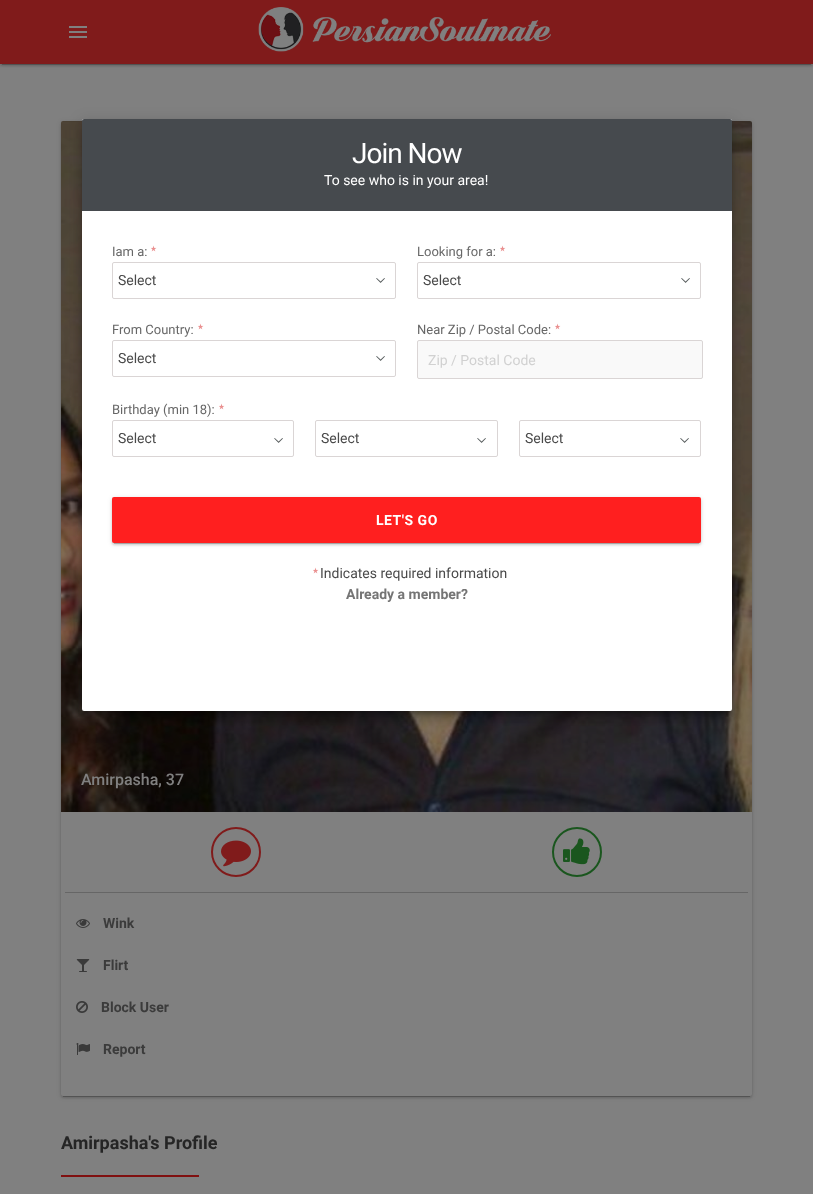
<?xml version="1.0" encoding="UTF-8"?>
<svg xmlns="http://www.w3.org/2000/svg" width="813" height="1194">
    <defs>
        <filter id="blur1" x="-50%" y="-200%" width="200%" height="500%"><feGaussianBlur stdDeviation="0.5"/></filter>
        <filter id="blur2" x="-50%" y="-200%" width="200%" height="500%"><feGaussianBlur stdDeviation="2.5"/></filter>
        <filter id="blur3" x="-50%" y="-200%" width="200%" height="500%"><feGaussianBlur stdDeviation="1"/></filter>
        <filter id="blur4" x="-50%" y="-200%" width="200%" height="500%"><feGaussianBlur stdDeviation="7"/></filter>
        <filter id="blur5" x="-50%" y="-200%" width="200%" height="500%"><feGaussianBlur stdDeviation="5"/></filter>
    </defs>
    <rect width="100%" height="100%" fill="#808080"/>
    <rect x="2" y="5" width="809" height="60" fill="#000000" fill-opacity="0.2" filter="url(#blur1)"/>
    <rect x="0" y="1" width="813" height="64" fill="#000000" fill-opacity="0.12" filter="url(#blur2)"/>
    <rect x="0" y="2" width="813" height="64" fill="#000000" fill-opacity="0.14" filter="url(#blur3)"/>
    <rect x="0" y="0" width="813" height="64" fill="#801B1B"/>
    <image x="69" y="26" width="18" height="12" href="img_01.png"/>
    <image x="258" y="7" width="293" height="45" href="img_02.png"/>
    <rect x="63" y="126" width="687" height="971" fill="#000000" fill-opacity="0.2" filter="url(#blur1)"/>
    <rect x="61" y="122" width="691" height="975" rx="2" fill="#000000" fill-opacity="0.12" filter="url(#blur2)"/>
    <rect x="61" y="123" width="691" height="975" rx="2" fill="#000000" fill-opacity="0.14" filter="url(#blur3)"/>
    <rect x="61" y="121" width="691" height="975" rx="2" fill="#808080"/>
    <image x="61" y="121" width="691" height="691" href="img_05.png"/>
    <rect x="85" y="127" width="644" height="586" fill="#000000" fill-opacity="0.3" filter="url(#blur2)"/>
    <rect x="80" y="120" width="654" height="596" rx="4" fill="#000000" fill-opacity="0.12" filter="url(#blur4)"/>
    <rect x="81" y="126" width="652" height="594" rx="3" fill="#000000" fill-opacity="0.14" filter="url(#blur5)"/>
    <rect x="82" y="119" width="650" height="592" rx="2" fill="#FFFFFF"/>
    <path d="M 84 119 H 730 C 731 119 732 120 732 121 V 211 H 82 V 121 C 82 120 83 119 84 119 Z" fill="#464A4E"/>
    <text x="352" y="163" font-family="Roboto" font-size="28" letter-spacing="-1" fill="#FFFFFF">Join Now</text>
    <text x="324" y="185" font-family="Roboto" font-size="14" fill="#FFFFFF">To see who is in your area!</text>
    <text x="112" y="256" font-family="Roboto" font-size="13" fill="#676767">Iam a:</text>
    <image x="151" y="245" width="6" height="7" href="img_03.png"/>
    <rect x="112.5" y="262.5" width="283" height="36" rx="1.5" fill="none" stroke="#DAD5D5"/>
    <text x="118" y="285" font-family="Roboto" font-size="14" fill="#4A4A4A">Select</text>
    <image x="376" y="278" width="9" height="5" href="img_04.png"/>
    <text x="417" y="256" font-family="Roboto" font-size="13" fill="#676767">Looking for a:</text>
    <image x="500" y="245" width="6" height="7" href="img_03.png"/>
    <rect x="417.5" y="262.5" width="283" height="36" rx="1.5" fill="none" stroke="#DAD5D5"/>
    <text x="423" y="285" font-family="Roboto" font-size="14" fill="#4A4A4A">Select</text>
    <image x="681" y="278" width="9" height="5" href="img_04.png"/>
    <text x="112" y="334" font-family="Roboto" font-size="13" fill="#676767">From Country:</text>
    <image x="198" y="323" width="6" height="7" href="img_03.png"/>
    <rect x="112.5" y="340.5" width="283" height="36" rx="1.5" fill="none" stroke="#DAD5D5"/>
    <text x="118" y="363" font-family="Roboto" font-size="14" fill="#4A4A4A">Select</text>
    <image x="376" y="356" width="9" height="5" href="img_04.png"/>
    <text x="417" y="334" font-family="Roboto" font-size="13" fill="#676767">Near Zip / Postal Code:</text>
    <image x="555" y="323" width="6" height="7" href="img_03.png"/>
    <rect x="417.5" y="340.5" width="285" height="38" rx="1.5" fill="#F9F9F9" stroke="#DAD5D5"/>
    <text x="428" y="365" font-family="Roboto" font-size="14" fill="#D1D1D1">Zip / Postal Code</text>
    <text x="112" y="414" font-family="Roboto" font-size="13" fill="#676767">Birthday (min 18):</text>
    <image x="219" y="403" width="6" height="7" href="img_03.png"/>
    <rect x="112.5" y="420.5" width="181" height="36" rx="1.5" fill="none" stroke="#DAD5D5"/>
    <text x="118" y="443" font-family="Roboto" font-size="14" fill="#4A4A4A">Select</text>
    <image x="274" y="438" width="9" height="5" href="img_04.png"/>
    <rect x="315.5" y="420.5" width="182" height="36" rx="1.5" fill="none" stroke="#DAD5D5"/>
    <text x="321" y="443" font-family="Roboto" font-size="14" fill="#4A4A4A">Select</text>
    <image x="477" y="438" width="9" height="5" href="img_04.png"/>
    <rect x="519.5" y="420.5" width="181" height="36" rx="1.5" fill="none" stroke="#DAD5D5"/>
    <text x="525" y="443" font-family="Roboto" font-size="14" fill="#4A4A4A">Select</text>
    <image x="680" y="438" width="9" height="5" href="img_04.png"/>
    <rect x="114" y="502" width="585" height="42" fill="#000000" fill-opacity="0.2" filter="url(#blur1)"/>
    <rect x="112" y="498" width="589" height="46" rx="2" fill="#000000" fill-opacity="0.12" filter="url(#blur2)"/>
    <rect x="112" y="499" width="589" height="46" rx="2" fill="#000000" fill-opacity="0.14" filter="url(#blur3)"/>
    <rect x="112" y="497" width="589" height="46" rx="2" fill="#FF1F1F"/>
    <text x="376" y="525" font-family="Roboto" font-size="14" font-weight="700" letter-spacing="0.5" fill="#FFFFFF">LET'S GO</text>
    <image x="313" y="567" width="6" height="7" href="img_03.png"/>
    <text x="320" y="578" font-family="Roboto" font-size="14" fill="#4A4A4A">Indicates required information</text>
    <text x="346" y="599" font-family="Roboto" font-size="14" font-weight="700" fill="#757575">Already a member?</text>
    <text x="81" y="785" font-family="Roboto" font-size="16" font-weight="500" fill="#808080">Amirpasha, 37</text>
    <rect x="65" y="892" width="683" height="1" fill="#666666"/>
    <circle cx="236" cy="852" r="24" fill="none" stroke="#801B1B" stroke-width="2"/>
    <image x="221" y="840" width="30" height="27" href="img_06.png"/>
    <circle cx="577" cy="852" r="24" fill="none" stroke="#1A561E" stroke-width="2"/>
    <image x="563" y="838" width="27" height="27" href="img_07.png"/>
    <image x="76" y="919" width="14" height="9" href="img_08.png"/>
    <text x="103" y="928" font-family="Roboto" font-size="14" font-weight="700" fill="#3B3B3B">Wink</text>
    <image x="76" y="959" width="14" height="13" href="img_09.png"/>
    <text x="103" y="970" font-family="Roboto" font-size="14" font-weight="700" fill="#3B3B3B">Flirt</text>
    <image x="76" y="1001" width="12" height="12" href="img_10.png"/>
    <text x="101" y="1012" font-family="Roboto" font-size="14" font-weight="700" fill="#3B3B3B">Block User</text>
    <image x="76" y="1043" width="14" height="12" href="img_11.png"/>
    <text x="103" y="1054" font-family="Roboto" font-size="14" font-weight="700" fill="#3B3B3B">Report</text>
    <text x="61" y="1149" font-family="Roboto" font-size="18" font-weight="700" fill="#252525">Amirpasha's Profile</text>
    <rect x="61" y="1175" width="138" height="2" fill="#801010"/>
</svg>
